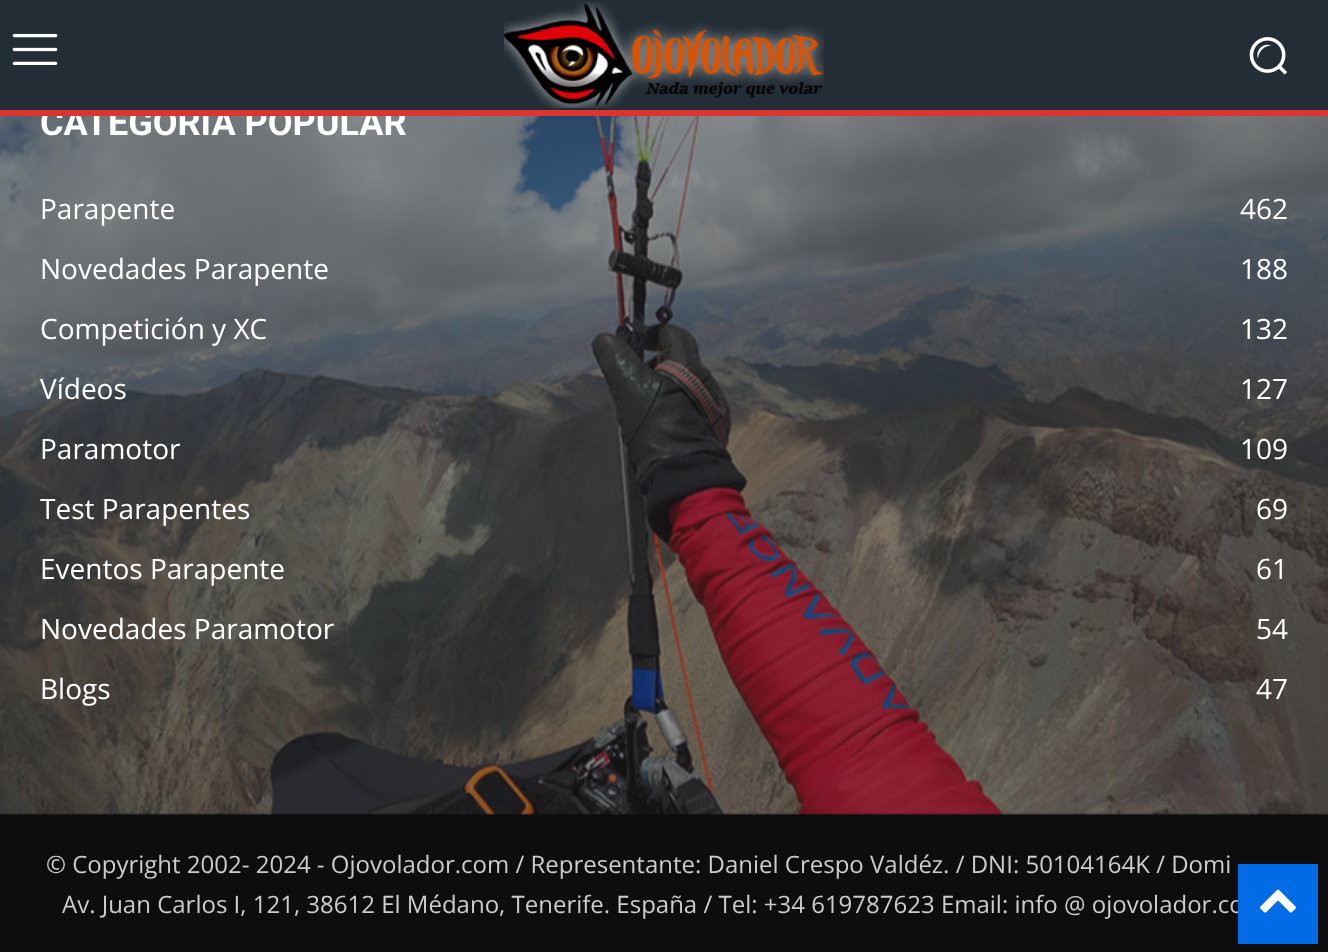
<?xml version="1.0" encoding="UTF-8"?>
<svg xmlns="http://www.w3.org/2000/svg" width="1328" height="952">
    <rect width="100%" height="100%" fill="#0D0D0D"/>
    <rect x="0" y="116" width="1328" height="698" fill="#222222"/>
    <image x="0" y="116" width="1328" height="699" href="img_04.png"/>
    <text x="40" y="135" font-family="Roboto" font-size="36" font-weight="700" fill="#FFFFFF">CATEGORÍA POPULAR</text>
    <rect x="0" y="0" width="1328" height="110" fill="#232D35"/>
    <image x="12" y="33" width="46" height="32" href="img_01.png"/>
    <image x="504" y="2" width="320" height="106" href="img_02.png"/>
    <image x="1249" y="37" width="39" height="38" href="img_03.png"/>
    <rect x="0" y="110" width="1328" height="6" fill="#DD3333"/>
    <text x="40" y="219" font-family="Open Sans" font-size="28" fill="#FFFFFF">Parapente</text>
    <text x="1240" y="219" font-family="Open Sans" font-size="28" fill="#FFFFFF">462</text>
    <text x="40" y="279" font-family="Open Sans" font-size="28" fill="#FFFFFF">Novedades Parapente</text>
    <text x="1240" y="279" font-family="Open Sans" font-size="28" fill="#FFFFFF">188</text>
    <text x="40" y="339" font-family="Open Sans" font-size="28" fill="#FFFFFF">Competición y XC</text>
    <text x="1240" y="339" font-family="Open Sans" font-size="28" fill="#FFFFFF">132</text>
    <text x="40" y="399" font-family="Open Sans" font-size="28" fill="#FFFFFF">Vídeos</text>
    <text x="1240" y="399" font-family="Open Sans" font-size="28" fill="#FFFFFF">127</text>
    <text x="40" y="459" font-family="Open Sans" font-size="28" fill="#FFFFFF">Paramotor</text>
    <text x="1240" y="459" font-family="Open Sans" font-size="28" fill="#FFFFFF">109</text>
    <text x="40" y="519" font-family="Open Sans" font-size="28" fill="#FFFFFF">Test Parapentes</text>
    <text x="1256" y="519" font-family="Open Sans" font-size="28" fill="#FFFFFF">69</text>
    <text x="40" y="579" font-family="Open Sans" font-size="28" fill="#FFFFFF">Eventos Parapente</text>
    <text x="1256" y="579" font-family="Open Sans" font-size="28" fill="#FFFFFF">61</text>
    <text x="40" y="639" font-family="Open Sans" font-size="28" fill="#FFFFFF">Novedades Paramotor</text>
    <text x="1256" y="639" font-family="Open Sans" font-size="28" fill="#FFFFFF">54</text>
    <text x="40" y="699" font-family="Open Sans" font-size="28" fill="#FFFFFF">Blogs</text>
    <text x="1256" y="699" font-family="Open Sans" font-size="28" fill="#FFFFFF">47</text>
    <text x="46" y="873" font-family="Open Sans" font-size="24" fill="#CCCCCC">© Copyright 2002- 2024 - Ojovolador.com / Representante: Daniel Crespo Valdéz. / DNI: 50104164K / Domi</text>
    <text x="62" y="913" font-family="Open Sans" font-size="24" fill="#CCCCCC">Av. Juan Carlos I, 121, 38612 El Médano, Tenerife. España / Tel: +34 619787623 Email: info @ ojovolador.co</text>
    <rect x="1238" y="864" width="80" height="80" fill="#006BE5"/>
    <image x="1260" y="889" width="36" height="24" href="img_05.png"/>
</svg>
